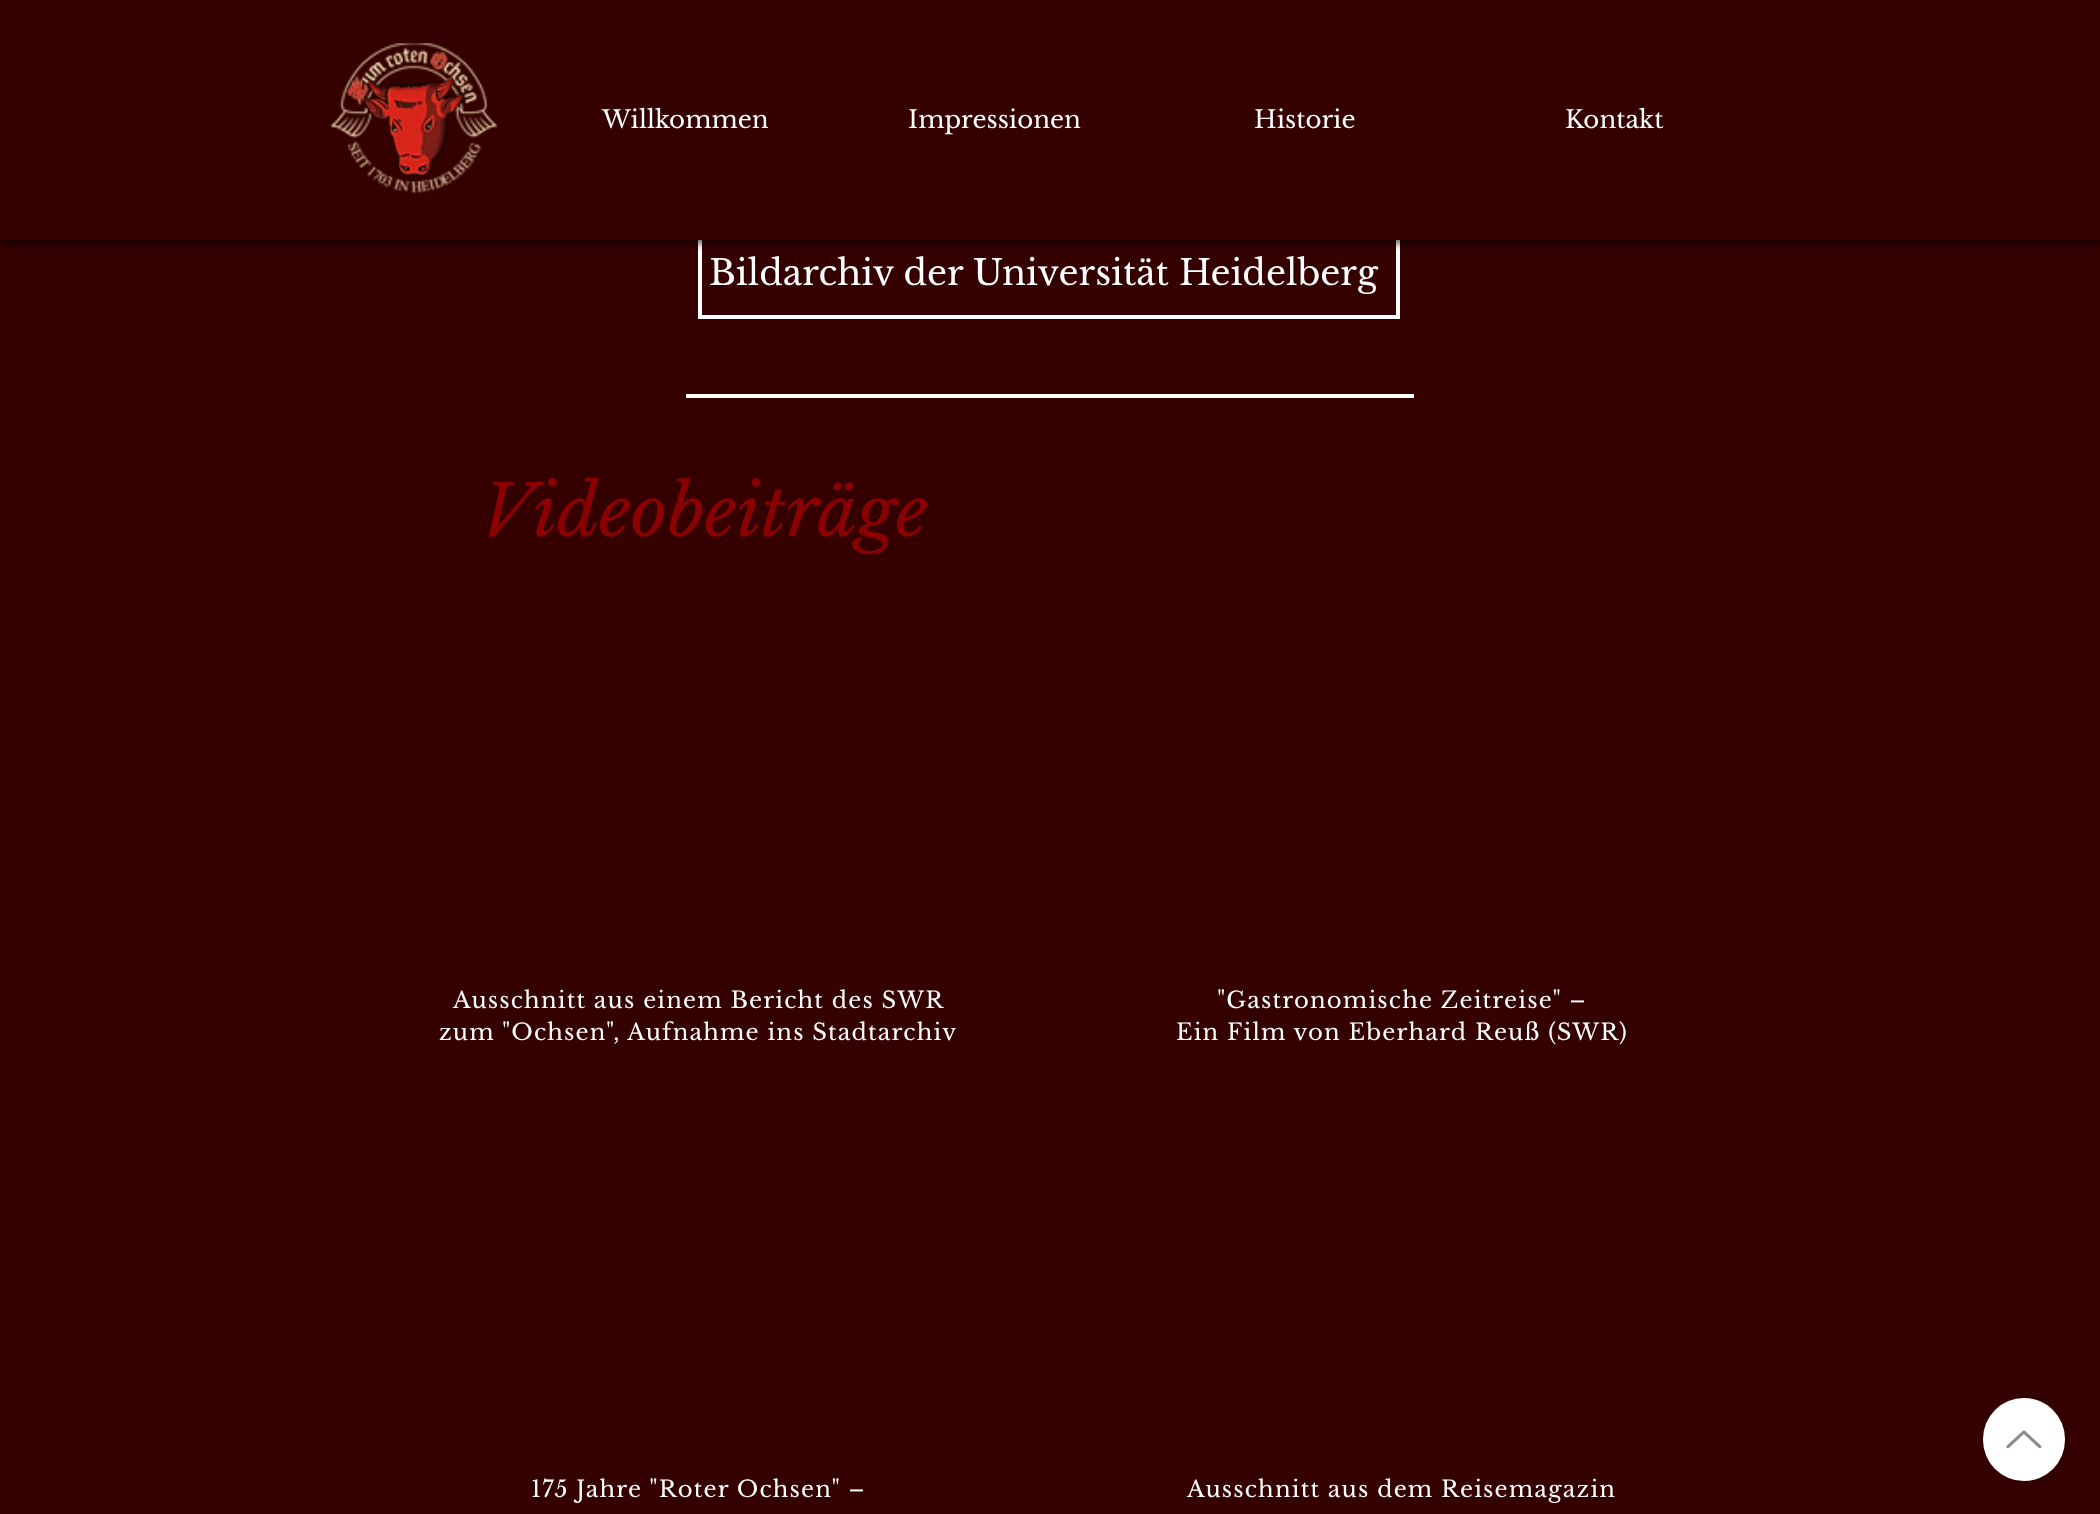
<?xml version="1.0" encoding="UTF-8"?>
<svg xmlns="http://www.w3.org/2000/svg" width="2100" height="1514">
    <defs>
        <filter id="blur1" x="-50%" y="-200%" width="200%" height="500%"><feGaussianBlur stdDeviation="4.5"/></filter>
    </defs>
    <rect width="100%" height="100%" fill="#340000"/>
    <rect x="700" y="226" width="698" height="91" fill="none" stroke="#FFFFFF" stroke-width="4"/>
    <rect x="0" y="4" width="2100" height="239" fill="#000000" fill-opacity="0.7" filter="url(#blur1)"/>
    <rect x="0" y="0" width="2100" height="240" fill="#340000"/>
    <image x="330" y="43" width="167" height="151" href="img_01.png"/>
    <text x="602" y="128" font-family="Libre Baskerville" font-size="24.5" fill="#FFFFFF">Willkommen</text>
    <text x="908" y="128" font-family="Libre Baskerville" font-size="24.5" fill="#FFFFFF">Impressionen</text>
    <text x="1254" y="128" font-family="Libre Baskerville" font-size="24.5" fill="#FFFFFF">Historie</text>
    <text x="1565" y="128" font-family="Libre Baskerville" font-size="24.5" fill="#FFFFFF">Kontakt</text>
    <text x="709" y="285" font-family="Libre Baskerville" font-size="35" fill="#FFFFFF">Bildarchiv der Universität Heidelberg</text>
    <rect x="686" y="394" width="728" height="4" fill="#FFFFFF"/>
    <text x="481" y="536" font-family="Libre Baskerville" font-size="70" font-style="italic" fill="#8B0000">Videobeiträge</text>
    <text x="453" y="1008" font-family="Libre Baskerville" font-size="22.75" letter-spacing="1.15" fill="#FFFFFF">Ausschnitt aus einem Bericht des SWR</text>
    <text x="439" y="1040" font-family="Libre Baskerville" font-size="22.75" letter-spacing="1.15" fill="#FFFFFF">zum "Ochsen", Aufnahme ins Stadtarchiv</text>
    <text x="1217" y="1008" font-family="Libre Baskerville" font-size="22.75" letter-spacing="1.15" fill="#FFFFFF">"Gastronomische Zeitreise" –</text>
    <text x="1176" y="1040" font-family="Libre Baskerville" font-size="22.75" letter-spacing="1.15" fill="#FFFFFF">Ein Film von Eberhard Reuß (SWR)</text>
    <text x="531" y="1497" font-family="Libre Baskerville" font-size="22.75" letter-spacing="1.15" fill="#FFFFFF">175 Jahre "Roter Ochsen" –</text>
    <text x="1187" y="1497" font-family="Libre Baskerville" font-size="22.75" letter-spacing="1.15" fill="#FFFFFF">Ausschnitt aus dem Reisemagazin</text>
    <rect x="1983" y="1398" width="82" height="83" rx="41" fill="#FFFFFF"/>
    <image x="2006" y="1430" width="36" height="19" href="img_02.png"/>
</svg>
